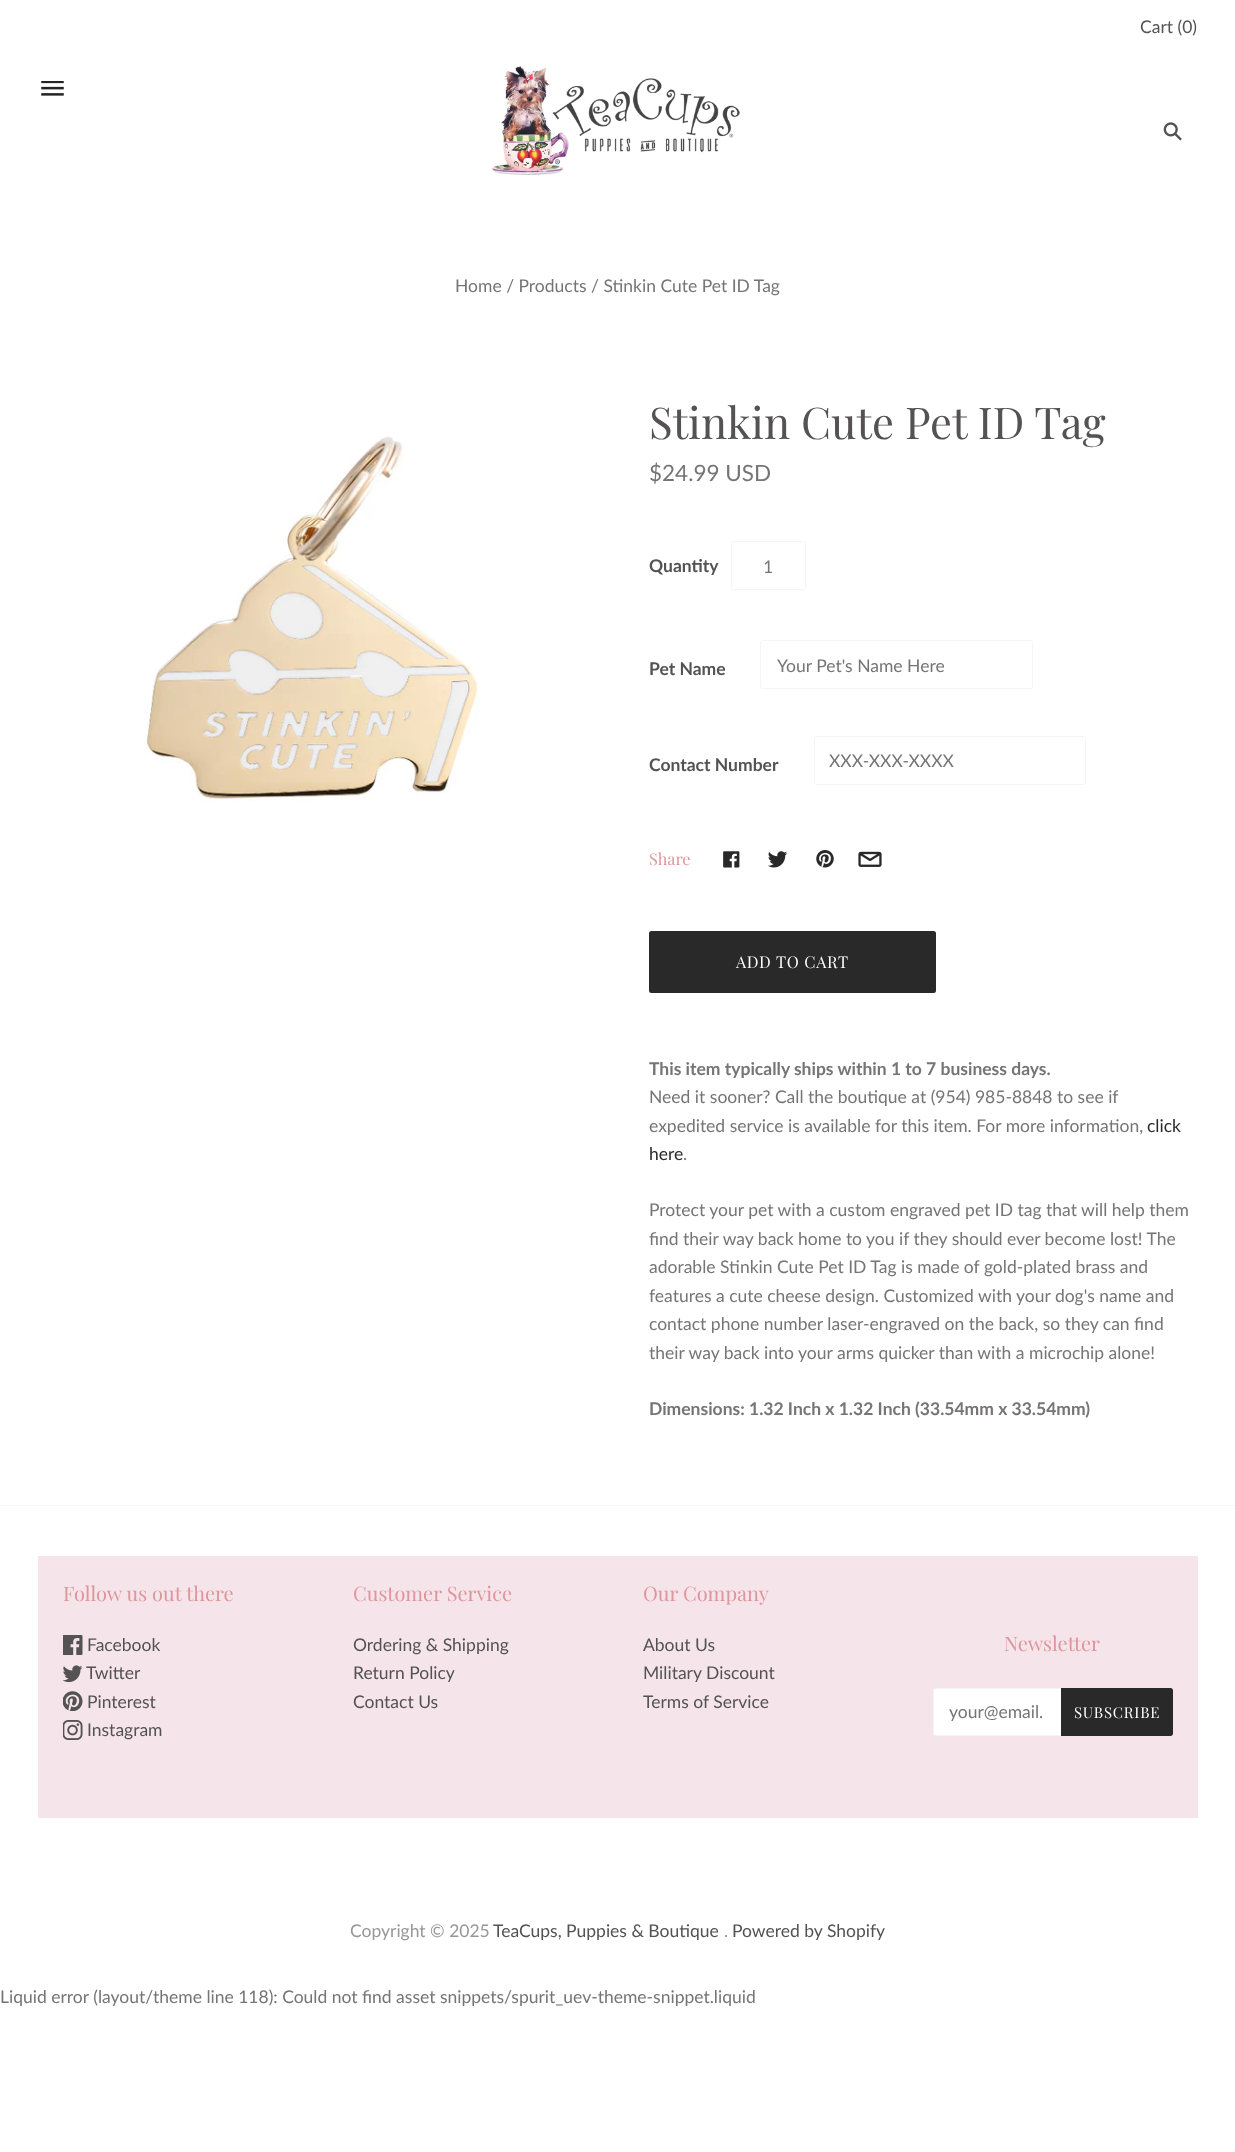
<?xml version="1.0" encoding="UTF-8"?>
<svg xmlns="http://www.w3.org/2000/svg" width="1235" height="2152">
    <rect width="100%" height="100%" fill="#FFFFFF"/>
    <text x="1140" y="33" font-family="Lato" font-size="17.5" fill="#545252">Cart (0)</text>
    <image x="41" y="81" width="23" height="15" href="img_01.png"/>
    <image x="492" y="66" width="248" height="109" href="img_02.png"/>
    <image x="1163" y="122" width="19" height="19" href="img_03.png"/>
    <text x="455" y="292" font-family="Lato" font-size="17.5" fill="#767474">Home / Products / Stinkin Cute Pet ID Tag</text>
    <image x="144" y="436" width="335" height="365" href="img_04.png"/>
    <text x="649" y="439" font-family="Playfair Display" font-size="43.75" fill="#545252">Stinkin Cute Pet ID Tag</text>
    <text x="649" y="481" font-family="Lato" font-size="22.5" fill="#767474">$24.99 USD</text>
    <text x="649" y="572" font-family="Lato" font-size="17.5" font-weight="700" fill="#545252">Quantity</text>
    <rect x="731.5" y="541.5" width="74" height="48" rx="2" fill="none" stroke="#F5F5F5"/>
    <text x="763" y="573" font-family="Lato" font-size="17.5" fill="#767474">1</text>
    <text x="649" y="675" font-family="Lato" font-size="17.5" font-weight="700" fill="#545252">Pet Name</text>
    <rect x="760.5" y="640.5" width="272" height="48" rx="2" fill="none" stroke="#F5F5F5"/>
    <text x="777" y="672" font-family="Lato" font-size="17.5" fill="#767474">Your Pet's Name Here</text>
    <text x="649" y="771" font-family="Lato" font-size="17.5" font-weight="700" fill="#545252">Contact Number</text>
    <rect x="814.5" y="736.5" width="271" height="48" rx="2" fill="none" stroke="#F5F5F5"/>
    <text x="829" y="767" font-family="Lato" font-size="17.5" fill="#767474">XXX-XXX-XXXX</text>
    <text x="649" y="865" font-family="Playfair Display" font-size="16.25" fill="#DE959B">Share</text>
    <image x="723" y="851" width="17" height="17" href="img_05.png"/>
    <image x="768" y="851" width="20" height="17" href="img_06.png"/>
    <image x="816" y="850" width="18" height="18" href="img_07.png"/>
    <image x="858" y="851" width="24" height="16" href="img_08.png"/>
    <rect x="649" y="931" width="287" height="62" rx="2.5" fill="#292929"/>
    <text x="736" y="968" font-family="Playfair Display" font-size="16.25" letter-spacing="0.75" fill="#FFFFFF">ADD TO CART</text>
    <text x="649" y="1075" font-family="Lato" font-size="17.5" font-weight="700" fill="#767474">This item typically ships within 1 to 7 business days.</text>
    <text font-family="Lato" font-size="17.5" fill="#767474">
        <tspan x="649" y="1103">Need it sooner? Call the boutique at (954) 985-8848 to see if</tspan>
        <tspan x="649" y="1132">expedited service is available for this item. For more information,</tspan>
    </text>
    <text x="1147" y="1132" font-family="Lato" font-size="17.5" fill="#292929">click</text>
    <text x="649" y="1160" font-family="Lato" font-size="17.5" fill="#292929">here</text>
    <text x="683" y="1160" font-family="Lato" font-size="17.5" fill="#767474">.</text>
    <text font-family="Lato" font-size="17.5" fill="#767474">
        <tspan x="649" y="1216">Protect your pet with a custom engraved pet ID tag that will help them</tspan>
        <tspan x="649" y="1245">find their way back home to you if they should ever become lost! The</tspan>
        <tspan x="649" y="1273">adorable Stinkin Cute Pet ID Tag is made of gold-plated brass and</tspan>
        <tspan x="649" y="1302">features a cute cheese design. Customized with your dog's name and</tspan>
        <tspan x="649" y="1330">contact phone number laser-engraved on the back, so they can find</tspan>
        <tspan x="649" y="1359">their way back into your arms quicker than with a microchip alone!</tspan>
    </text>
    <text x="649" y="1415" font-family="Lato" font-size="17.5" font-weight="700" fill="#767474">Dimensions: 1.32 Inch x 1.32 Inch (33.54mm x 33.54mm)</text>
    <rect x="0" y="1505" width="1235" height="1" fill="#F5F5F5"/>
    <rect x="38" y="1556" width="1160" height="262" fill="#F5E5EB"/>
    <text x="63" y="1601" font-family="Playfair Display" font-size="20" fill="#DE959B">Follow us out there</text>
    <image x="63" y="1635" width="20" height="20" href="img_09.png"/>
    <text x="87" y="1651" font-family="Lato" font-size="17.5" fill="#545252">Facebook</text>
    <image x="63" y="1665" width="20" height="18" href="img_10.png"/>
    <text x="86" y="1679" font-family="Lato" font-size="17.5" fill="#545252">Twitter</text>
    <image x="63" y="1691" width="20" height="20" href="img_11.png"/>
    <text x="87" y="1708" font-family="Lato" font-size="17.5" fill="#545252">Pinterest</text>
    <image x="63" y="1720" width="20" height="20" href="img_12.png"/>
    <text x="87" y="1736" font-family="Lato" font-size="17.5" fill="#545252">Instagram</text>
    <text x="353" y="1601" font-family="Playfair Display" font-size="20" fill="#DE959B">Customer Service</text>
    <text font-family="Lato" font-size="17.5" fill="#545252">
        <tspan x="353" y="1651">Ordering &amp; Shipping</tspan>
        <tspan x="353" y="1679">Return Policy</tspan>
        <tspan x="353" y="1708">Contact Us</tspan>
    </text>
    <text x="643" y="1601" font-family="Playfair Display" font-size="20" fill="#DE959B">Our Company</text>
    <text font-family="Lato" font-size="17.5" fill="#545252">
        <tspan x="643" y="1651">About Us</tspan>
        <tspan x="643" y="1679">Military Discount</tspan>
        <tspan x="643" y="1708">Terms of Service</tspan>
    </text>
    <text x="1004" y="1651" font-family="Playfair Display" font-size="20" fill="#DE959B">Newsletter</text>
    <rect x="933.5" y="1688.5" width="239" height="47" rx="2" fill="#FFFFFF" stroke="#F5F5F5"/>
    <text x="949" y="1718" font-family="Lato" font-size="17.5" fill="#767474">your@email.</text>
    <path d="M 1061 1688 H 1170.5 C 1172 1688 1173 1689 1173 1690.5 V 1733.5 C 1173 1735 1172 1736 1170.5 1736 H 1061 Z" fill="#292929"/>
    <text x="1074" y="1718" font-family="Playfair Display" font-size="15" letter-spacing="0.75" fill="#FFFFFF">SUBSCRIBE</text>
    <text x="350" y="1937" font-family="Lato" font-size="17.5" fill="#989696">Copyright © 2025</text>
    <text x="493" y="1937" font-family="Lato" font-size="17.5" fill="#545252">TeaCups, Puppies &amp; Boutique</text>
    <text x="724" y="1937" font-family="Lato" font-size="17.5" fill="#989696">.</text>
    <text x="732" y="1937" font-family="Lato" font-size="17.5" fill="#545252">Powered by Shopify</text>
    <text x="0" y="2003" font-family="Lato" font-size="17.5" fill="#767474">Liquid error (layout/theme line 118): Could not find asset snippets/spurit_uev-theme-snippet.liquid</text>
</svg>
